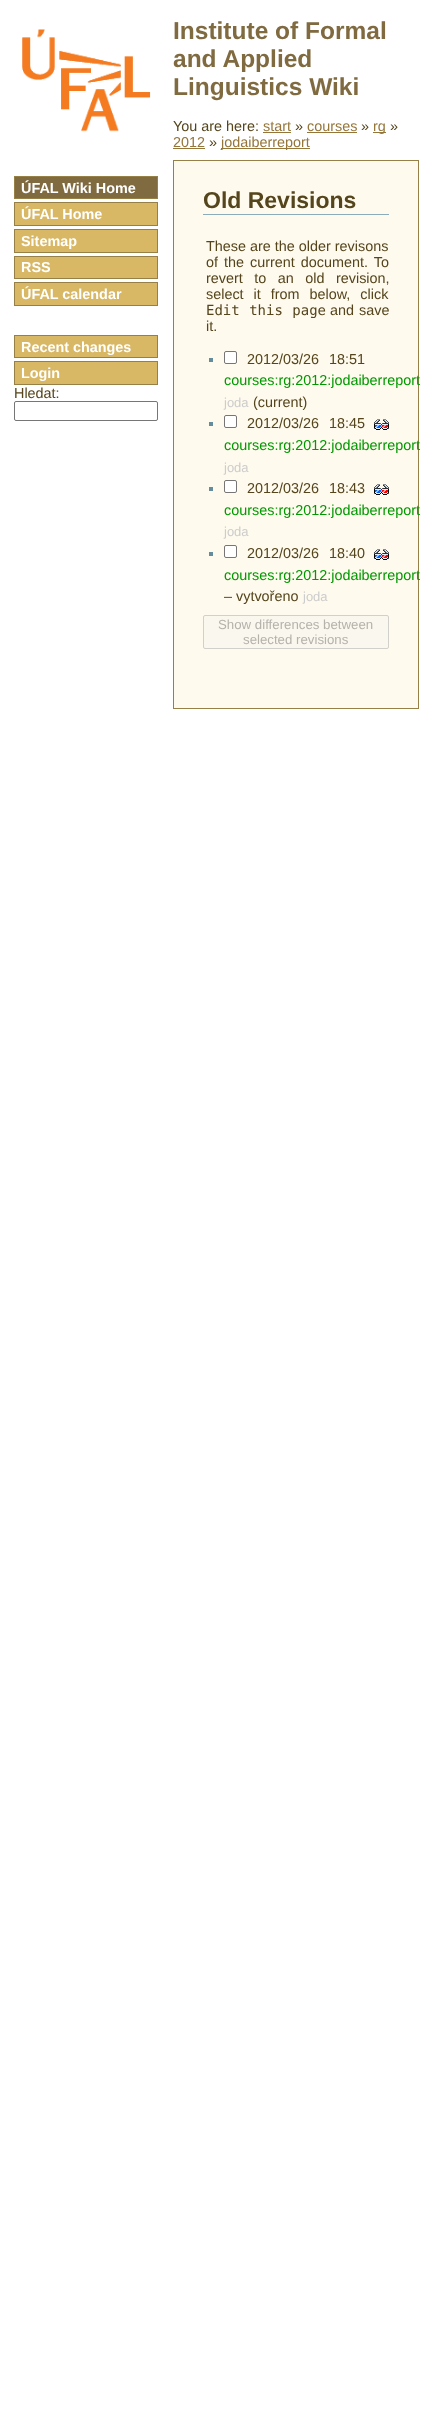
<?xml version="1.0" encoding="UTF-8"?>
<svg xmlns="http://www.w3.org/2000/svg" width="433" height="2436">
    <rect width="100%" height="100%" fill="#FFFFFF"/>
    <image x="22" y="29" width="129" height="103" href="img_01.png"/>
    <text font-family="Liberation Sans" font-size="24.5" font-weight="700" fill="#806A40">
        <tspan x="173" y="39">Institute of Formal</tspan>
        <tspan x="173" y="67">and Applied</tspan>
        <tspan x="173" y="95">Linguistics Wiki</tspan>
    </text>
    <text x="173" y="131" font-family="Liberation Sans" font-size="14.4" fill="#55451C">You are here:</text>
    <text x="263" y="131" font-family="Liberation Sans" font-size="14.4" fill="#95763A">start</text>
    <rect x="263" y="132" width="28" height="1" fill="#95763A"/>
    <text x="295" y="131" font-family="Liberation Sans" font-size="14.4" fill="#55451C">»</text>
    <text x="307" y="131" font-family="Liberation Sans" font-size="14.4" fill="#95763A">courses</text>
    <rect x="307" y="132" width="50" height="1" fill="#95763A"/>
    <text x="361" y="131" font-family="Liberation Sans" font-size="14.4" fill="#55451C">»</text>
    <rect x="373" y="132" width="13" height="1" fill="#95763A"/>
    <text x="373" y="131" font-family="Liberation Sans" font-size="14.4" fill="#95763A">rg</text>
    <text x="390" y="131" font-family="Liberation Sans" font-size="14.4" fill="#55451C">»</text>
    <text x="173" y="147" font-family="Liberation Sans" font-size="14.4" fill="#95763A">2012</text>
    <rect x="173" y="148" width="32" height="1" fill="#95763A"/>
    <text x="209" y="147" font-family="Liberation Sans" font-size="14.4" fill="#55451C">»</text>
    <rect x="221" y="148" width="89" height="1" fill="#95763A"/>
    <text x="221" y="147" font-family="Liberation Sans" font-size="14.4" fill="#95763A">jodaiberreport</text>
    <rect x="14.5" y="176.5" width="143" height="22" fill="#806A40" stroke="#978047"/>
    <text x="21" y="193" font-family="Liberation Sans" font-size="14.4" font-weight="700" fill="#FFFFFF">ÚFAL Wiki Home</text>
    <rect x="14.5" y="202.5" width="143" height="23" fill="#D8B765" stroke="#978047"/>
    <text x="21" y="219" font-family="Liberation Sans" font-size="14.4" font-weight="700" fill="#FFFFFF">ÚFAL Home</text>
    <rect x="14.5" y="229.5" width="143" height="23" fill="#D8B765" stroke="#978047"/>
    <text x="21" y="246" font-family="Liberation Sans" font-size="14.4" font-weight="700" fill="#FFFFFF">Sitemap</text>
    <rect x="14.5" y="256.5" width="143" height="22" fill="#D8B765" stroke="#978047"/>
    <text x="21" y="272" font-family="Liberation Sans" font-size="14.4" font-weight="700" fill="#FFFFFF">RSS</text>
    <rect x="14.5" y="282.5" width="143" height="23" fill="#D8B765" stroke="#978047"/>
    <text x="21" y="299" font-family="Liberation Sans" font-size="14.4" font-weight="700" fill="#FFFFFF">ÚFAL calendar</text>
    <rect x="14.5" y="335.5" width="143" height="22" fill="#D8B765" stroke="#978047"/>
    <text x="21" y="352" font-family="Liberation Sans" font-size="14.4" font-weight="700" fill="#FFFFFF">Recent changes</text>
    <rect x="14.5" y="361.5" width="143" height="23" fill="#D8B765" stroke="#978047"/>
    <text x="21" y="378" font-family="Liberation Sans" font-size="14.4" font-weight="700" fill="#FFFFFF">Login</text>
    <text x="14" y="398" font-family="Liberation Sans" font-size="14.4" fill="#55451C">Hledat:</text>
    <rect x="14.5" y="401.5" width="143" height="19" rx="1.5" fill="none" stroke="#767676"/>
    <rect x="173.5" y="160.5" width="245" height="548" fill="#FFFAEE" stroke="#978047"/>
    <rect x="203" y="214" width="186" height="1" fill="#8CACBB"/>
    <text x="203" y="208" font-family="Liberation Sans" font-size="23" font-weight="700" fill="#55451C">Old Revisions</text>
    <text font-family="Liberation Sans" font-size="14.4" fill="#55451C">
        <tspan x="206" y="251">These are the older revisons</tspan>
        <tspan x="206" y="267" word-spacing="2">of the current document. To</tspan>
        <tspan x="206" y="283" word-spacing="7.5">revert to an old revision,</tspan>
        <tspan x="206" y="299" word-spacing="6">select it from below, click</tspan>
    </text>
    <text x="206" y="315" word-spacing="1" font-family="DejaVu Sans Mono" font-size="14" fill="#55451C">Edit this page</text>
    <text x="330" y="315" word-spacing="1" font-family="Liberation Sans" font-size="14.4" fill="#55451C">and save</text>
    <text x="206" y="331" font-family="Liberation Sans" font-size="14.4" fill="#55451C">it.</text>
    <rect x="209" y="358" width="4" height="4" fill="#638C9C"/>
    <rect x="224.5" y="351.5" width="12" height="12" rx="1.5" fill="#FFFFFF" stroke="#767676"/>
    <text x="247" y="364" word-spacing="6" font-family="Liberation Sans" font-size="14.4" fill="#55451C">2012/03/26 18:51</text>
    <text x="224" y="385" font-family="Liberation Sans" font-size="14.4" fill="#009900">courses:rg:2012:jodaiberreport</text>
    <text x="224" y="407" font-family="Liberation Sans" font-size="13" fill="#CCCCCC">joda</text>
    <text x="253" y="407" font-family="Liberation Sans" font-size="14.4" fill="#55451C">(current)</text>
    <rect x="209" y="422" width="4" height="4" fill="#638C9C"/>
    <rect x="224.5" y="415.5" width="12" height="12" rx="1.5" fill="#FFFFFF" stroke="#767676"/>
    <text x="247" y="428" word-spacing="6" font-family="Liberation Sans" font-size="14.4" fill="#55451C">2012/03/26 18:45</text>
    <image x="374" y="419" width="15" height="11" href="img_02.png"/>
    <text x="224" y="450" font-family="Liberation Sans" font-size="14.4" fill="#009900">courses:rg:2012:jodaiberreport</text>
    <text x="224" y="472" font-family="Liberation Sans" font-size="13" fill="#CCCCCC">joda</text>
    <rect x="209" y="487" width="4" height="4" fill="#638C9C"/>
    <rect x="224.5" y="480.5" width="12" height="12" rx="1.5" fill="#FFFFFF" stroke="#767676"/>
    <text x="247" y="493" word-spacing="6" font-family="Liberation Sans" font-size="14.4" fill="#55451C">2012/03/26 18:43</text>
    <image x="374" y="484" width="15" height="11" href="img_02.png"/>
    <text x="224" y="515" font-family="Liberation Sans" font-size="14.4" fill="#009900">courses:rg:2012:jodaiberreport</text>
    <text x="224" y="536" font-family="Liberation Sans" font-size="13" fill="#CCCCCC">joda</text>
    <rect x="209" y="552" width="4" height="4" fill="#638C9C"/>
    <rect x="224.5" y="545.5" width="12" height="12" rx="1.5" fill="#FFFFFF" stroke="#767676"/>
    <text x="247" y="558" word-spacing="6" font-family="Liberation Sans" font-size="14.4" fill="#55451C">2012/03/26 18:40</text>
    <image x="374" y="549" width="15" height="11" href="img_02.png"/>
    <text x="224" y="580" font-family="Liberation Sans" font-size="14.4" fill="#009900">courses:rg:2012:jodaiberreport</text>
    <text x="224" y="601" font-family="Liberation Sans" font-size="14.4" fill="#55451C">– vytvořeno</text>
    <text x="303" y="601" font-family="Liberation Sans" font-size="13" fill="#CCCCCC">joda</text>
    <rect x="203.5" y="615.5" width="185" height="33" rx="1.5" fill="#FAF7EE" stroke="#D2D0CA"/>
    <text x="218" y="629" font-family="Liberation Sans" font-size="13.25" fill="#B4B2AB">Show differences between</text>
    <text x="243" y="644" font-family="Liberation Sans" font-size="13.25" fill="#B4B2AB">selected revisions</text>
</svg>
